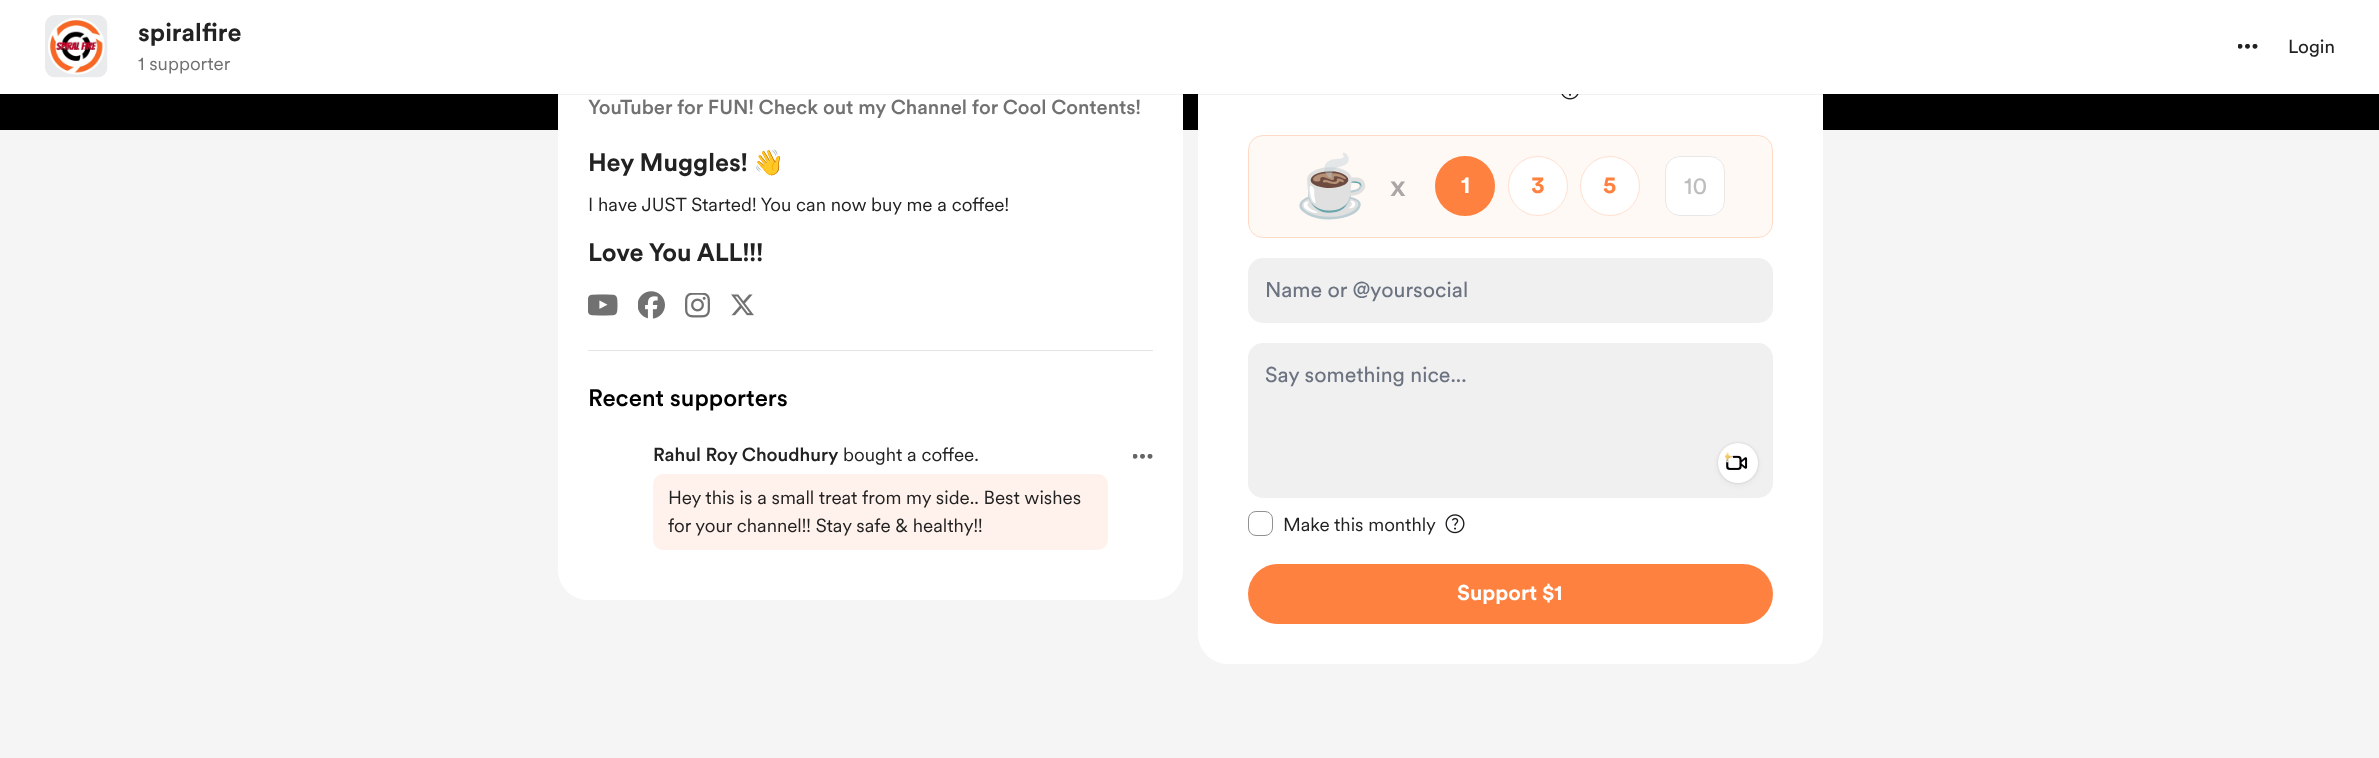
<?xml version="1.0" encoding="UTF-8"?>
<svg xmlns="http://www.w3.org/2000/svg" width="2379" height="758">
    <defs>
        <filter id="blur1" x="-50%" y="-200%" width="200%" height="500%"><feGaussianBlur stdDeviation="0.5"/></filter>
        <filter id="blur2" x="-50%" y="-200%" width="200%" height="500%"><feGaussianBlur stdDeviation="3"/></filter>
        <filter id="blur3" x="-50%" y="-200%" width="200%" height="500%"><feGaussianBlur stdDeviation="1"/></filter>
    </defs>
    <rect width="100%" height="100%" fill="#F5F5F5"/>
    <image x="0" y="94" width="2379" height="36" href="img_04.png"/>
    <rect x="558" y="30" width="625" height="570" rx="30" fill="#FFFFFF"/>
    <rect x="1198" y="30" width="625" height="634" rx="30" fill="#FFFFFF"/>
    <image x="1561" y="94" width="18" height="6" href="img_10.png"/>
    <rect x="0" y="1" width="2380" height="94" fill="#000000" fill-opacity="0.06" filter="url(#blur1)"/>
    <rect x="0" y="0" width="2379" height="94" fill="#FFFFFF"/>
    <image x="45" y="15" width="63" height="63" href="img_01.png"/>
    <image x="48" y="18" width="57" height="57" href="img_02.png"/>
    <text x="138" y="41" font-family="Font" font-size="25" font-weight="700" fill="#222222">spiralfire</text>
    <text x="138" y="70" font-family="Font" font-size="18.75" fill="#717171">1 supporter</text>
    <image x="2238" y="44" width="20" height="5" href="img_03.png"/>
    <text x="2288" y="53" font-family="'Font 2'" font-size="18.75" fill="#222222">Login</text>
    <rect x="588" y="350" width="565" height="1" fill="#E4E4E4"/>
    <text x="588" y="114" font-family="Font" font-size="20" font-weight="500" fill="#717171">YouTuber for FUN! Check out my Channel for Cool Contents!</text>
    <text x="588" y="171" font-family="Font" font-size="25" font-weight="700" fill="#222222">Hey Muggles!</text>
    <text x="753" y="171" font-family="Noto Color Emoji" font-size="25" fill="#222222">👋</text>
    <text x="588" y="211" font-family="Font" font-size="18.75" fill="#222222">I have JUST Started! You can now buy me a coffee!</text>
    <text x="588" y="261" font-family="Font" font-size="25" font-weight="700" fill="#222222">Love You ALL!!!</text>
    <image x="588" y="294" width="30" height="22" href="img_05.png"/>
    <image x="638" y="291" width="27" height="28" href="img_06.png"/>
    <image x="685" y="293" width="25" height="25" href="img_07.png"/>
    <image x="731" y="294" width="23" height="22" href="img_08.png"/>
    <text x="588" y="406" font-family="Font" font-size="23.75" font-weight="500" fill="#000000">Recent supporters</text>
    <text x="653" y="461" font-family="Font" font-size="18.75" font-weight="500" fill="#222222">Rahul Roy Choudhury</text>
    <text x="843" y="461" font-family="Font" font-size="18.75" fill="#222222">bought a coffee.</text>
    <rect x="653" y="474" width="455" height="76" rx="10" fill="#FFF2EC"/>
    <text font-family="Font" font-size="18.75" fill="#222222">
        <tspan x="668" y="504">Hey this is a small treat from my side.. Best wishes</tspan>
        <tspan x="668" y="532">for your channel!! Stay safe &amp; healthy!!</tspan>
    </text>
    <image x="1133" y="454" width="20" height="5" href="img_09.png"/>
    <rect x="1248" y="135" width="525" height="103" rx="15" fill="#FFF9F5"/>
    <rect x="1248.5" y="135.5" width="524" height="102" rx="14.5" fill="none" stroke="#FF813F" stroke-opacity="0.25"/>
    <text x="1295" y="207" font-family="Noto Color Emoji" font-size="60" fill="#000000">☕</text>
    <text x="1390" y="196" font-family="Font" font-size="30" font-weight="500" fill="#AAA7A6">x</text>
    <circle cx="1465" cy="186" r="30" fill="#FF813F"/>
    <circle cx="1465" cy="186" r="29.5" fill="none" stroke="#FF813F" stroke-opacity="0.25"/>
    <text x="1461" y="193" font-family="Font" font-size="23.75" font-weight="700" fill="#FFFFFF">1</text>
    <circle cx="1538" cy="186" r="30" fill="#FFFFFF"/>
    <circle cx="1538" cy="186" r="29.5" fill="none" stroke="#FF813F" stroke-opacity="0.25"/>
    <text x="1531" y="193" font-family="Font" font-size="23.75" font-weight="700" fill="#FF813F">3</text>
    <circle cx="1610" cy="186" r="30" fill="#FFFFFF"/>
    <circle cx="1610" cy="186" r="29.5" fill="none" stroke="#FF813F" stroke-opacity="0.25"/>
    <text x="1603" y="193" font-family="Font" font-size="23.75" font-weight="700" fill="#FF813F">5</text>
    <rect x="1665" y="156" width="60" height="60" rx="15" fill="#FFFFFF"/>
    <rect x="1665.5" y="156.5" width="59" height="59" rx="14.5" fill="none" stroke="#222222" stroke-opacity="0.1"/>
    <text x="1684" y="194" font-family="'Font 2'" font-size="23.75" fill="#BDBDBD">10</text>
    <rect x="1248" y="258" width="525" height="65" rx="15" fill="#F0F0F0"/>
    <text x="1265" y="297" font-family="'Font 2'" font-size="21.25" fill="#6B7280">Name or @yoursocial</text>
    <rect x="1248" y="343" width="525" height="155" rx="15" fill="#F0F0F0"/>
    <text x="1265" y="382" font-family="'Font 2'" font-size="21.25" fill="#6B7280">Say something nice...</text>
    <rect x="1718" y="445" width="40" height="40" rx="20" fill="#000000" fill-opacity="0.05" filter="url(#blur2)"/>
    <rect x="1718" y="443" width="40" height="40" rx="20" fill="#000000" fill-opacity="0.15" filter="url(#blur3)"/>
    <circle cx="1738" cy="463" r="20" fill="#FFFFFF"/>
    <image x="1726" y="455" width="22" height="15" href="img_12.png"/>
    <image x="1725" y="452" width="8" height="11" href="img_11.png"/>
    <rect x="1248.5" y="511.5" width="24" height="24" rx="7.5" fill="none" stroke="#919191"/>
    <text x="1283" y="531" font-family="Font" font-size="18.75" fill="#222222">Make this monthly</text>
    <image x="1445" y="514" width="20" height="20" href="img_13.png"/>
    <rect x="1248" y="564" width="525" height="60" rx="30" fill="#FF813F"/>
    <text x="1457" y="600" font-family="Font" font-size="21.25" font-weight="700" fill="#FFFFFF">Support $1</text>
</svg>
